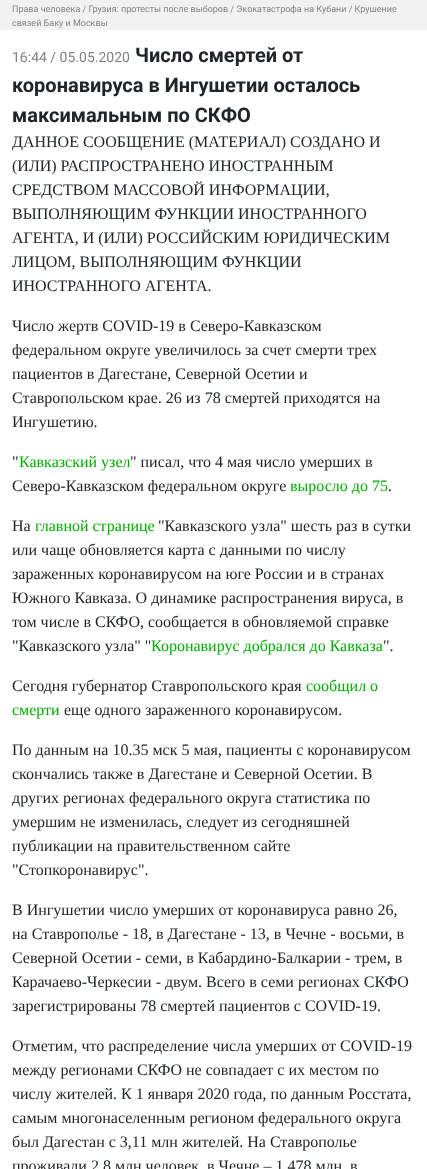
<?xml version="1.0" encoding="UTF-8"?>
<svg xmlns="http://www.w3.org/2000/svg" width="427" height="1169">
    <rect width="100%" height="100%" fill="#FFFFFF"/>
    <rect x="0" y="0" width="427" height="30" fill="#F2F2F2"/>
    <text font-family="Roboto" font-size="9" fill="#828282">
        <tspan x="12" y="12">Права человека / Грузия: протесты после выборов / Экокатастрофа на Кубани / Крушение</tspan>
        <tspan x="12" y="26">связей Баку и Москвы</tspan>
    </text>
    <text x="12" y="62" font-family="Roboto" font-size="14" fill="#828282">16:44 / 05.05.2020</text>
    <text x="135" y="62" font-family="Roboto" font-size="20" font-weight="700" fill="#212529">Число смертей от</text>
    <text font-family="Roboto" font-size="20" font-weight="700" fill="#212529">
        <tspan x="12" y="92">коронавируса в Ингушетии осталось</tspan>
        <tspan x="12" y="122">максимальным по СКФО</tspan>
    </text>
    <text font-family="Liberation Serif" font-size="16" fill="#212529">
        <tspan x="12" y="147">ДАННОЕ СООБЩЕНИЕ (МАТЕРИАЛ) СОЗДАНО И</tspan>
        <tspan x="12" y="171">(ИЛИ) РАСПРОСТРАНЕНО ИНОСТРАННЫМ</tspan>
        <tspan x="12" y="195">СРЕДСТВОМ МАССОВОЙ ИНФОРМАЦИИ,</tspan>
        <tspan x="12" y="219">ВЫПОЛНЯЮЩИМ ФУНКЦИИ ИНОСТРАННОГО</tspan>
        <tspan x="12" y="243">АГЕНТА, И (ИЛИ) РОССИЙСКИМ ЮРИДИЧЕСКИМ</tspan>
        <tspan x="12" y="267">ЛИЦОМ, ВЫПОЛНЯЮЩИМ ФУНКЦИИ</tspan>
        <tspan x="12" y="291">ИНОСТРАННОГО АГЕНТА.</tspan>
    </text>
    <text font-family="Liberation Serif" font-size="16" fill="#212529">
        <tspan x="12" y="331">Число жертв COVID-19 в Северо-Кавказском</tspan>
        <tspan x="12" y="355">федеральном округе увеличилось за счет смерти трех</tspan>
        <tspan x="12" y="379">пациентов в Дагестане, Северной Осетии и</tspan>
        <tspan x="12" y="403">Ставропольском крае. 26 из 78 смертей приходятся на</tspan>
        <tspan x="12" y="427">Ингушетию.</tspan>
    </text>
    <text x="12" y="467" font-family="Liberation Serif" font-size="16" fill="#212529">"</text>
    <text x="19" y="467" font-family="Liberation Serif" font-size="16" fill="#00AE00">Кавказский узел</text>
    <text x="130" y="467" font-family="Liberation Serif" font-size="16" fill="#212529">" писал, что 4 мая число умерших в</text>
    <text x="12" y="491" font-family="Liberation Serif" font-size="16" fill="#212529">Северо-Кавказском федеральном округе</text>
    <text x="290" y="491" font-family="Liberation Serif" font-size="16" fill="#00AE00">выросло до 75</text>
    <text x="388" y="491" font-family="Liberation Serif" font-size="16" fill="#212529">.</text>
    <text x="12" y="531" font-family="Liberation Serif" font-size="16" fill="#212529">На</text>
    <text x="35" y="531" font-family="Liberation Serif" font-size="16" fill="#00AE00">главной странице</text>
    <text x="158" y="531" font-family="Liberation Serif" font-size="16" fill="#212529">"Кавказского узла" шесть раз в сутки</text>
    <text font-family="Liberation Serif" font-size="16" fill="#212529">
        <tspan x="12" y="555">или чаще обновляется карта с данными по числу</tspan>
        <tspan x="12" y="579">зараженных коронавирусом на юге России и в странах</tspan>
        <tspan x="12" y="603">Южного Кавказа. О динамике распространения вируса, в</tspan>
        <tspan x="12" y="627">том числе в СКФО, сообщается в обновляемой справке</tspan>
        <tspan x="12" y="651">"Кавказского узла" "</tspan>
    </text>
    <text x="151" y="651" font-family="Liberation Serif" font-size="16" fill="#00AE00">Коронавирус добрался до Кавказа</text>
    <text x="383" y="651" font-family="Liberation Serif" font-size="16" fill="#212529">".</text>
    <text x="12" y="691" font-family="Liberation Serif" font-size="16" fill="#212529">Сегодня губернатор Ставропольского края</text>
    <text x="306" y="691" font-family="Liberation Serif" font-size="16" fill="#00AE00">сообщил о</text>
    <text x="12" y="715" font-family="Liberation Serif" font-size="16" fill="#00AE00">смерти</text>
    <text x="64" y="715" font-family="Liberation Serif" font-size="16" fill="#212529">еще одного зараженного коронавирусом.</text>
    <text font-family="Liberation Serif" font-size="16" fill="#212529">
        <tspan x="12" y="755">По данным на 10.35 мск 5 мая, пациенты с коронавирусом</tspan>
        <tspan x="12" y="779">скончались также в Дагестане и Северной Осетии. В</tspan>
        <tspan x="12" y="803">других регионах федерального округа статистика по</tspan>
        <tspan x="12" y="827">умершим не изменилась, следует из сегодняшней</tspan>
        <tspan x="12" y="851">публикации на правительственном сайте</tspan>
        <tspan x="12" y="875">"Стопкоронавирус".</tspan>
    </text>
    <text font-family="Liberation Serif" font-size="16" fill="#212529">
        <tspan x="12" y="915">В Ингушетии число умерших от коронавируса равно 26,</tspan>
        <tspan x="12" y="939">на Ставрополье - 18, в Дагестане - 13, в Чечне - восьми, в</tspan>
        <tspan x="12" y="963">Северной Осетии - семи, в Кабардино-Балкарии - трем, в</tspan>
        <tspan x="12" y="987">Карачаево-Черкесии - двум. Всего в семи регионах СКФО</tspan>
        <tspan x="12" y="1011">зарегистрированы 78 смертей пациентов с COVID-19.</tspan>
    </text>
    <text font-family="Liberation Serif" font-size="16" fill="#212529">
        <tspan x="12" y="1051">Отметим, что распределение числа умерших от COVID-19</tspan>
        <tspan x="12" y="1075">между регионами СКФО не совпадает с их местом по</tspan>
        <tspan x="12" y="1099">числу жителей. К 1 января 2020 года, по данным Росстата,</tspan>
        <tspan x="12" y="1123">самым многонаселенным регионом федерального округа</tspan>
        <tspan x="12" y="1147">был Дагестан с 3,11 млн жителей. На Ставрополье</tspan>
        <tspan x="12" y="1171">проживали 2,8 млн человек, в Чечне – 1,478 млн, в</tspan>
    </text>
</svg>
